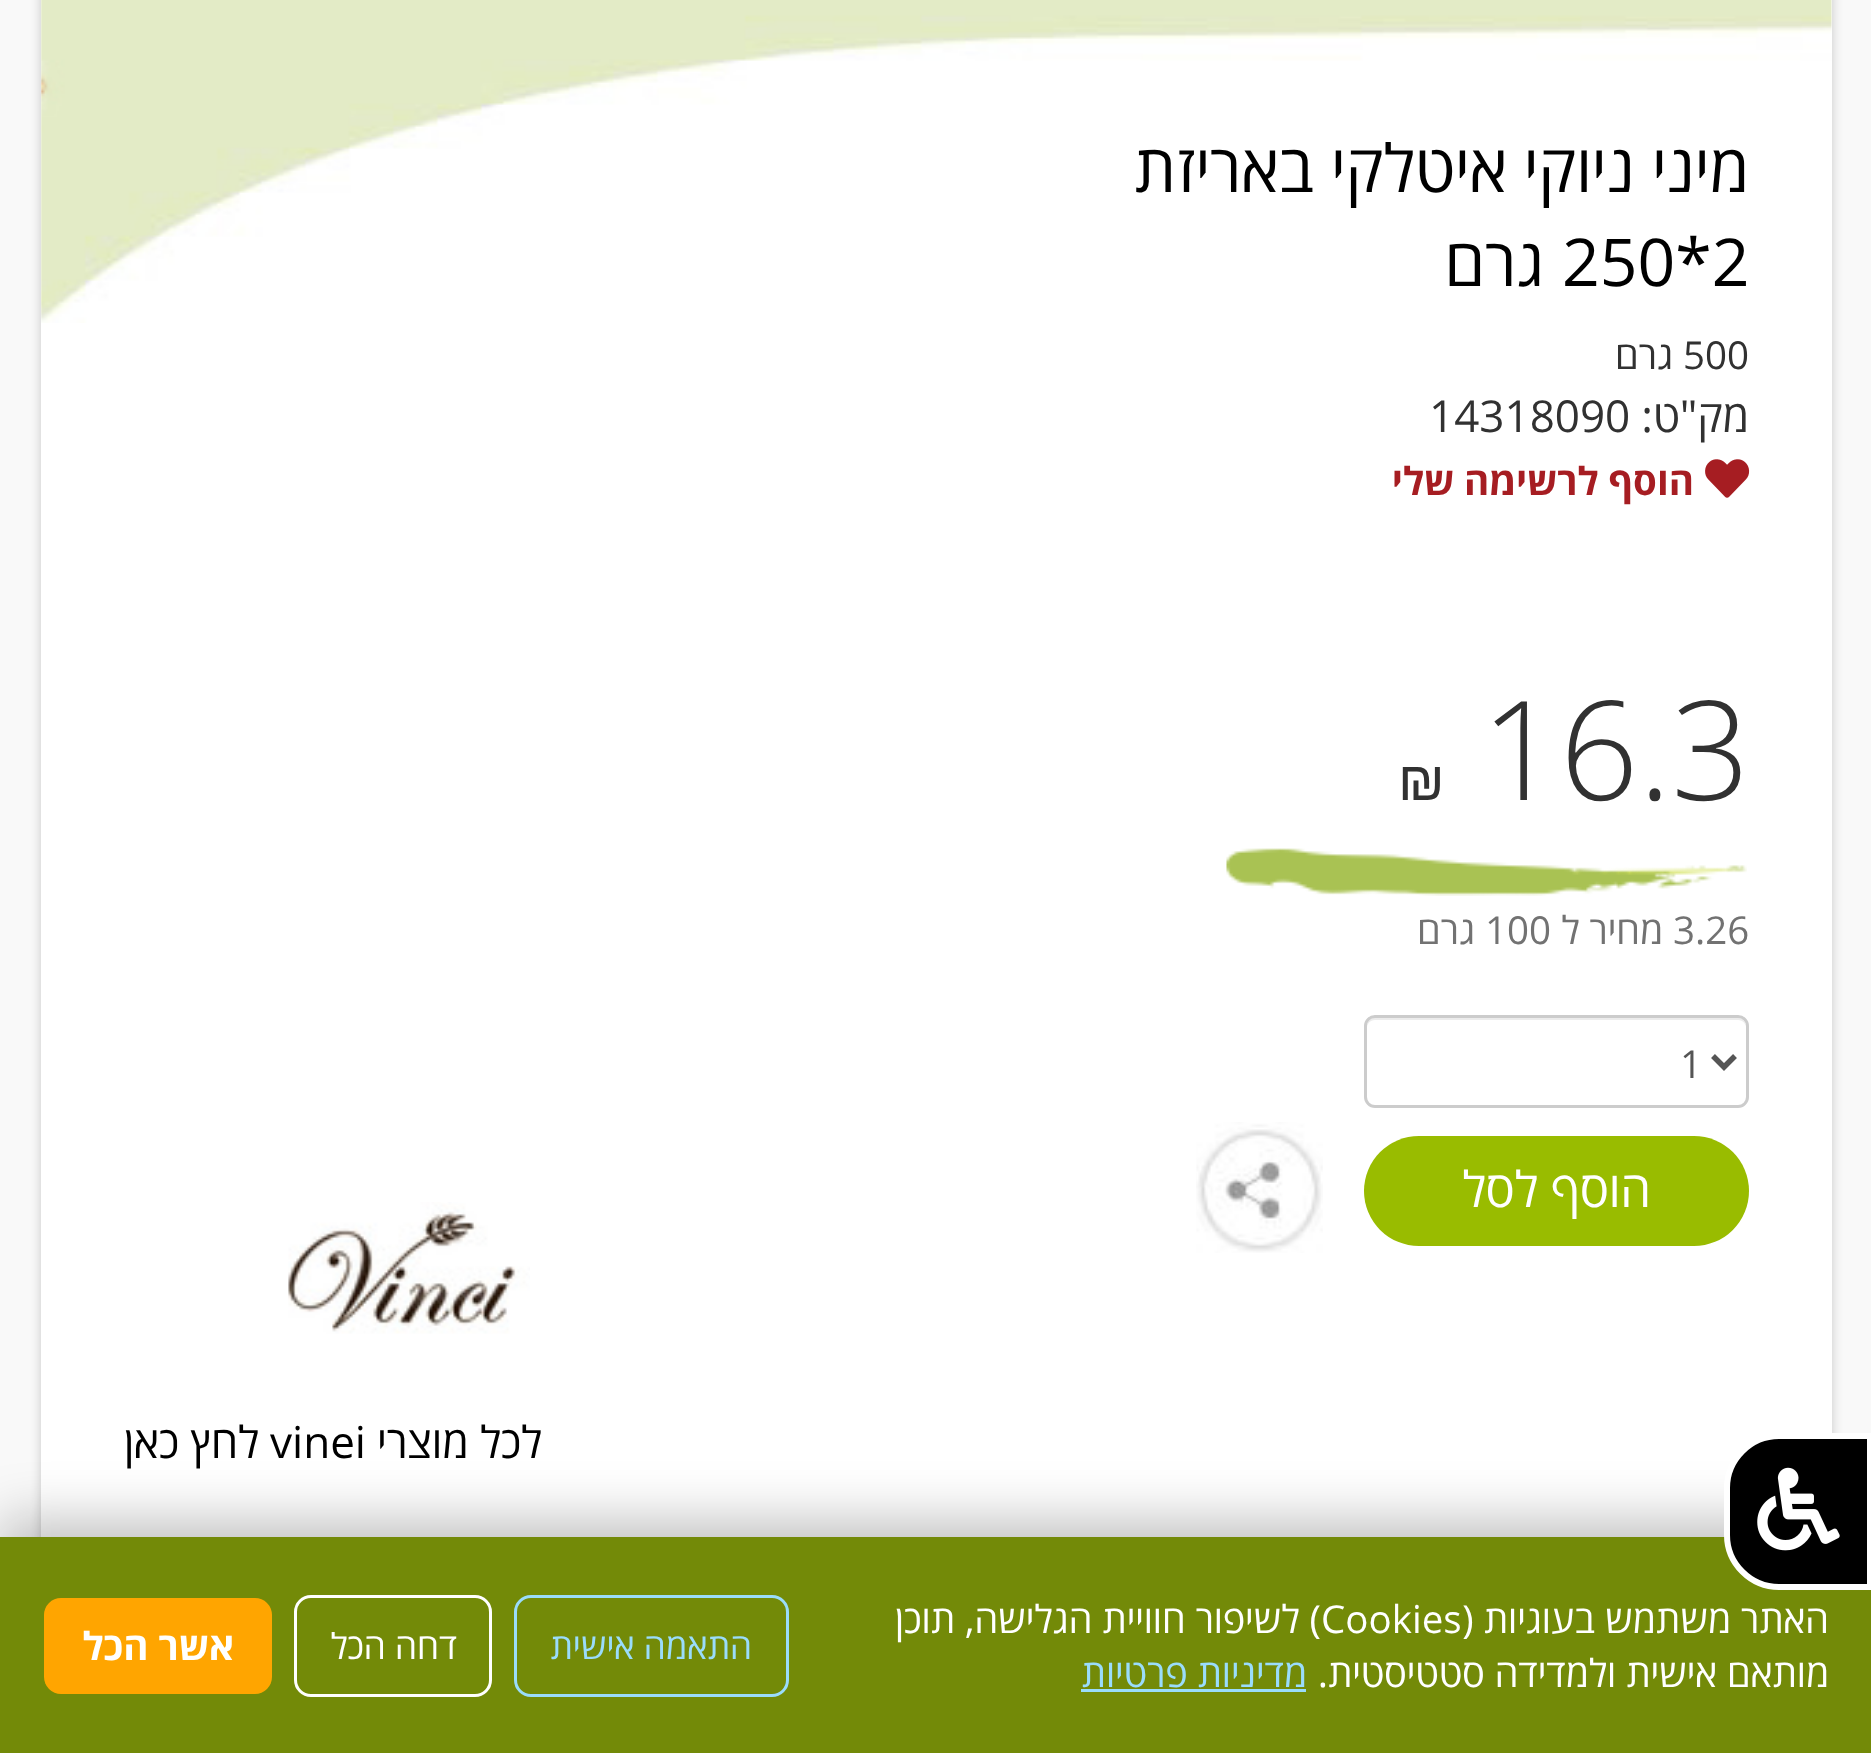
<?xml version="1.0" encoding="UTF-8"?>
<svg xmlns="http://www.w3.org/2000/svg" width="1871" height="1753">
    <defs>
        <filter id="blur1" x="-50%" y="-200%" width="200%" height="500%"><feGaussianBlur stdDeviation="5.5"/></filter>
        <filter id="blur2" x="-50%" y="-200%" width="200%" height="500%"><feGaussianBlur stdDeviation="27.5"/></filter>
    </defs>
    <rect width="100%" height="100%" fill="#F9F9F9"/>
    <rect x="41" y="-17" width="1791" height="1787" fill="#000000" fill-opacity="0.2" filter="url(#blur1)"/>
    <rect x="41" y="0" width="1791" height="1537" fill="#FFFFFF"/>
    <image x="41" y="0" width="1791" height="323" href="img_01.png"/>
    <text x="1749" y="192" font-family="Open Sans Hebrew" font-size="66" direction="rtl" fill="#000000">מיני ניוקי</text>
    <text x="1507" y="192" font-family="Open Sans Hebrew" font-size="66" direction="rtl" fill="#000000">איטלקי באריזת</text>
    <text x="1562" y="286" font-family="Open Sans Hebrew" font-size="66" fill="#000000">250*2</text>
    <text x="1544" y="286" font-family="Open Sans Hebrew" font-size="66" direction="rtl" fill="#000000">גרם</text>
    <text x="1683" y="369" font-family="Open Sans Hebrew" font-size="38.5" fill="#313131">500</text>
    <text x="1673" y="369" font-family="Open Sans Hebrew" font-size="38.5" direction="rtl" fill="#313131">גרם</text>
    <text x="1749" y="432" font-family="Open Sans Hebrew" font-size="44" direction="rtl" fill="#313131">מק"ט:</text>
    <text x="1429" y="432" font-family="Open Sans Hebrew" font-size="44" fill="#313131">14318090</text>
    <image x="1705" y="459" width="45" height="39" href="img_02.png"/>
    <text x="1694" y="495" font-family="Open Sans Hebrew" font-size="38.5" font-weight="700" direction="rtl" fill="#A61D22">הוסף לרשימה שלי</text>
    <text x="1481" y="800" font-family="Open Sans Hebrew" font-size="138" font-weight="300" fill="#313131">16.3</text>
    <text x="1398" y="800" font-family="Liberation Sans" font-size="55" fill="#313131">₪</text>
    <image x="1226" y="848" width="521" height="48" href="img_03.png"/>
    <text x="1673" y="944" font-family="Open Sans Hebrew" font-size="38.5" fill="#727272">3.26</text>
    <text x="1663" y="944" font-family="Open Sans Hebrew" font-size="38.5" direction="rtl" fill="#727272">מחיר ל</text>
    <text x="1485" y="944" font-family="Open Sans Hebrew" font-size="38.5" fill="#727272">100</text>
    <text x="1475" y="944" font-family="Open Sans Hebrew" font-size="38.5" direction="rtl" fill="#727272">גרם</text>
    <path d="M 1375 1020 H 1738 C 1743 1020 1746 1024 1746 1028 C 1746 1023 1744 1018 1738 1018 H 1373 C 1368 1019 1367 1024 1367 1028 C 1367 1024 1370 1020 1375 1020 Z" fill="#ECECEC"/>
    <rect x="1365.5" y="1016.5" width="382" height="90" rx="9.5" fill="none" stroke="#CCCCCC" stroke-width="3"/>
    <path d="M 1713 1056 L 1724 1067 L 1735 1056" fill="none" stroke="#555555" stroke-width="5.5"/>
    <text x="1680" y="1078" font-family="Open Sans Hebrew" font-size="38.5" fill="#555555">1</text>
    <rect x="1364" y="1136" width="385" height="110" rx="55" fill="#99BC00"/>
    <text x="1651" y="1207" font-family="Open Sans Hebrew" font-size="49.5" direction="rtl" fill="#FFFFFF">הוסף לסל</text>
    <image x="1196" y="1122" width="127" height="131" href="img_04.png"/>
    <image x="288" y="1202" width="242" height="132" href="img_05.png"/>
    <text x="542" y="1458" font-family="Open Sans Hebrew" font-size="44" direction="rtl" fill="#000000">לכל מוצרי</text>
    <text x="270" y="1458" font-family="Open Sans Hebrew" font-size="44" fill="#000000">vinei</text>
    <text x="259" y="1458" font-family="Open Sans Hebrew" font-size="44" direction="rtl" fill="#000000">לחץ כאן</text>
    <rect x="0" y="1521" width="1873" height="217" fill="#000000" fill-opacity="0.25" filter="url(#blur2)"/>
    <rect x="0" y="1537" width="1871" height="216" fill="#738A08"/>
    <path d="M 1779 1436 H 1870 V 1587 H 1779 C 1750.5 1587 1727 1563.5 1727 1535 V 1488 C 1727 1459.5 1750.5 1436 1779 1436 Z" fill="#000000" stroke="#FFFFFF" stroke-width="6"/>
    <image x="1757" y="1467" width="83" height="84" href="img_06.png"/>
    <text x="1829" y="1633" font-family="Open Sans Hebrew" font-size="38.5" direction="rtl" fill="#FFFFFF">האתר משתמש בעוגיות (</text>
    <text x="1321" y="1633" font-family="Open Sans Hebrew" font-size="38.5" fill="#FFFFFF">Cookies</text>
    <text x="1321" y="1633" font-family="Open Sans Hebrew" font-size="38.5" direction="rtl" fill="#FFFFFF">) לשיפור חוויית הגלישה, תוכן</text>
    <text x="1829" y="1687" font-family="Open Sans Hebrew" font-size="38.5" direction="rtl" fill="#FFFFFF">מותאם אישית ולמדידה סטטיסטית.</text>
    <text x="1307" y="1687" font-family="Open Sans Hebrew" font-size="38.5" direction="rtl" fill="#9ADCFB">מדיניות פרטיות</text>
    <rect x="1081" y="1689" width="225" height="3" fill="#9ADCFB"/>
    <rect x="515.5" y="1596.5" width="272" height="99" rx="15.5" fill="none" stroke="#9ADCFB" stroke-width="3"/>
    <text x="752" y="1659" font-family="Open Sans Hebrew" font-size="35.75" direction="rtl" fill="#9ADCFB">התאמה אישית</text>
    <rect x="295.5" y="1596.5" width="195" height="99" rx="15.5" fill="none" stroke="#FFFFFF" stroke-width="3"/>
    <text x="457" y="1659" font-family="Open Sans Hebrew" font-size="35.75" direction="rtl" fill="#FFFFFF">דחה הכל</text>
    <rect x="44" y="1598" width="228" height="96" rx="17" fill="#FFA500"/>
    <text x="234" y="1660" font-family="Open Sans Hebrew" font-size="38.5" font-weight="700" direction="rtl" fill="#FFFFFF">אשר הכל</text>
</svg>
